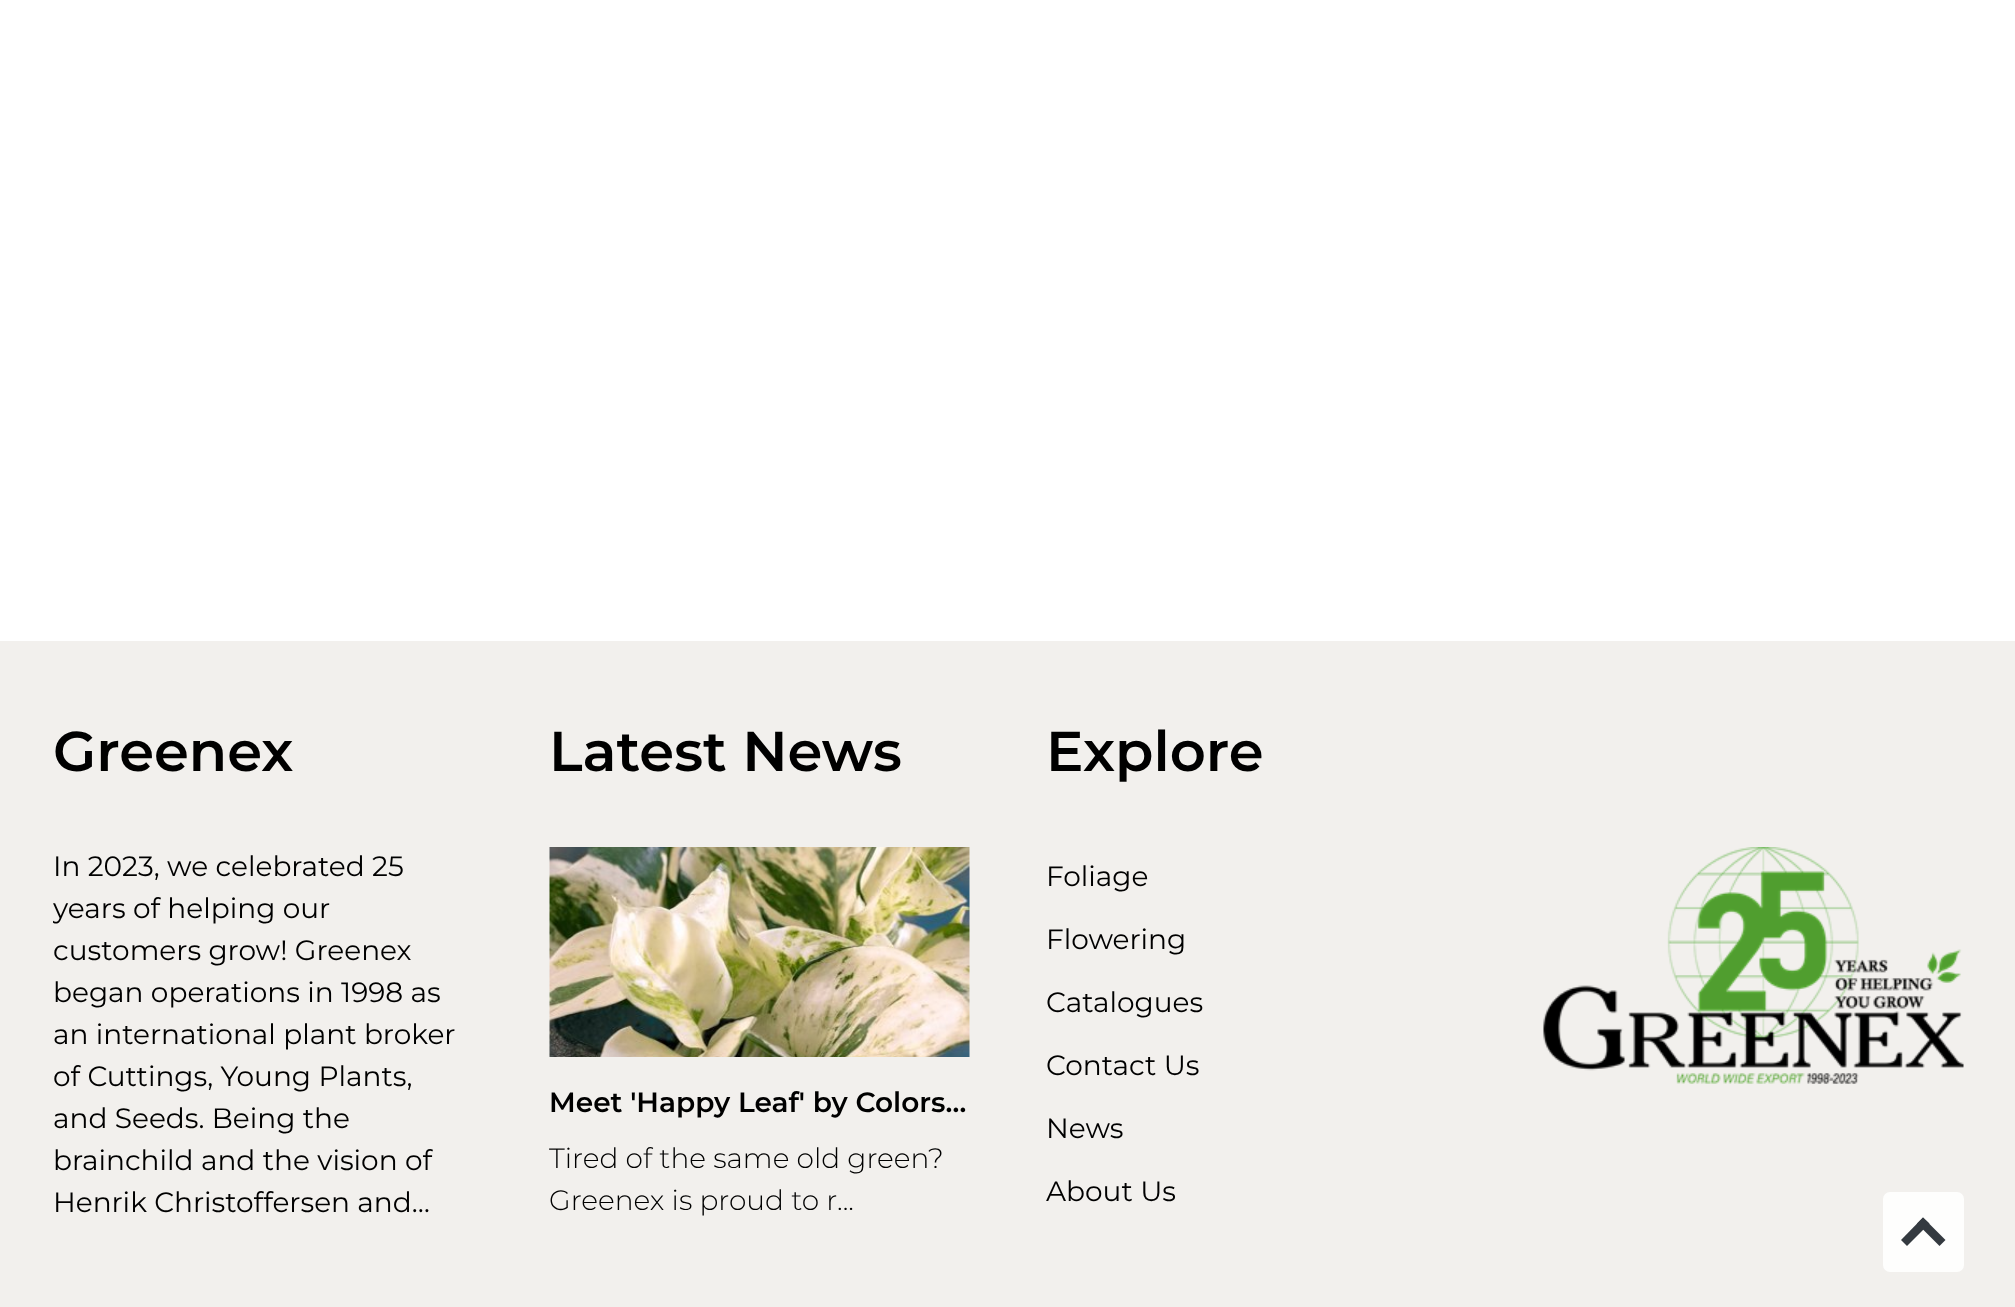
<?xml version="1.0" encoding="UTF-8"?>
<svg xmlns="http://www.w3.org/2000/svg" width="2015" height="1307">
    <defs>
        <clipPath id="clip1"><rect x="53" y="847" width="420" height="378"/></clipPath>
    </defs>
    <rect width="100%" height="100%" fill="#FFFFFF"/>
    <rect x="0" y="641" width="2015" height="666" fill="#F2F0ED"/>
    <text x="53" y="771" font-family="Montserrat" font-size="56" font-weight="600" fill="#000000">Greenex</text>
    <text x="53" y="876" font-family="Montserrat" font-size="28" fill="#000000">In 2023, we celebrated 25</text>
    <g clip-path="url(#clip1)">
        <text x="53" y="918" font-family="Montserrat" font-size="28" fill="#000000">years of helping our</text>
    </g>
    <text font-family="Montserrat" font-size="28" fill="#000000">
        <tspan x="53" y="960">customers grow! Greenex</tspan>
        <tspan x="53" y="1002">began operations in 1998 as</tspan>
        <tspan x="53" y="1044">an international plant broker</tspan>
        <tspan x="53" y="1086">of Cuttings, Young Plants,</tspan>
        <tspan x="53" y="1128">and Seeds. Being the</tspan>
        <tspan x="53" y="1170">brainchild and the vision of</tspan>
        <tspan x="53" y="1212">Henrik Christoffersen and…</tspan>
    </text>
    <text x="549" y="771" font-family="Montserrat" font-size="56" font-weight="600" fill="#000000">Latest News</text>
    <image x="549" y="847" width="421" height="210" href="img_01.png"/>
    <text x="549" y="1112" font-family="Montserrat" font-size="28" font-weight="600" fill="#000000">Meet 'Happy Leaf' by Colors…</text>
    <text font-family="Montserrat" font-size="28" font-weight="300" fill="#000000">
        <tspan x="549" y="1168">Tired of the same old green?</tspan>
        <tspan x="549" y="1210">Greenex is proud to r...</tspan>
    </text>
    <text x="1046" y="771" font-family="Montserrat" font-size="56" font-weight="600" fill="#000000">Explore</text>
    <text x="1046" y="886" font-family="Montserrat" font-size="28" fill="#000000">Foliage</text>
    <text x="1046" y="949" font-family="Montserrat" font-size="28" fill="#000000">Flowering</text>
    <text x="1046" y="1012" font-family="Montserrat" font-size="28" fill="#000000">Catalogues</text>
    <text x="1046" y="1075" font-family="Montserrat" font-size="28" fill="#000000">Contact Us</text>
    <text x="1046" y="1138" font-family="Montserrat" font-size="28" fill="#000000">News</text>
    <text x="1046" y="1201" font-family="Montserrat" font-size="28" fill="#000000">About Us</text>
    <image x="1543" y="847" width="421" height="237" href="img_02.png"/>
    <rect x="1883" y="1192" width="81" height="80" rx="7" fill="#FEFEFD"/>
    <path d="M 1923 1217.5 L 1945.5 1240 L 1939.5 1246 L 1917 1223.5 Z" fill="#343A40"/>
    <path d="M 1923 1217.5 L 1929.5 1223.5 L 1907 1246 L 1901 1240 Z" fill="#343A40"/>
</svg>
